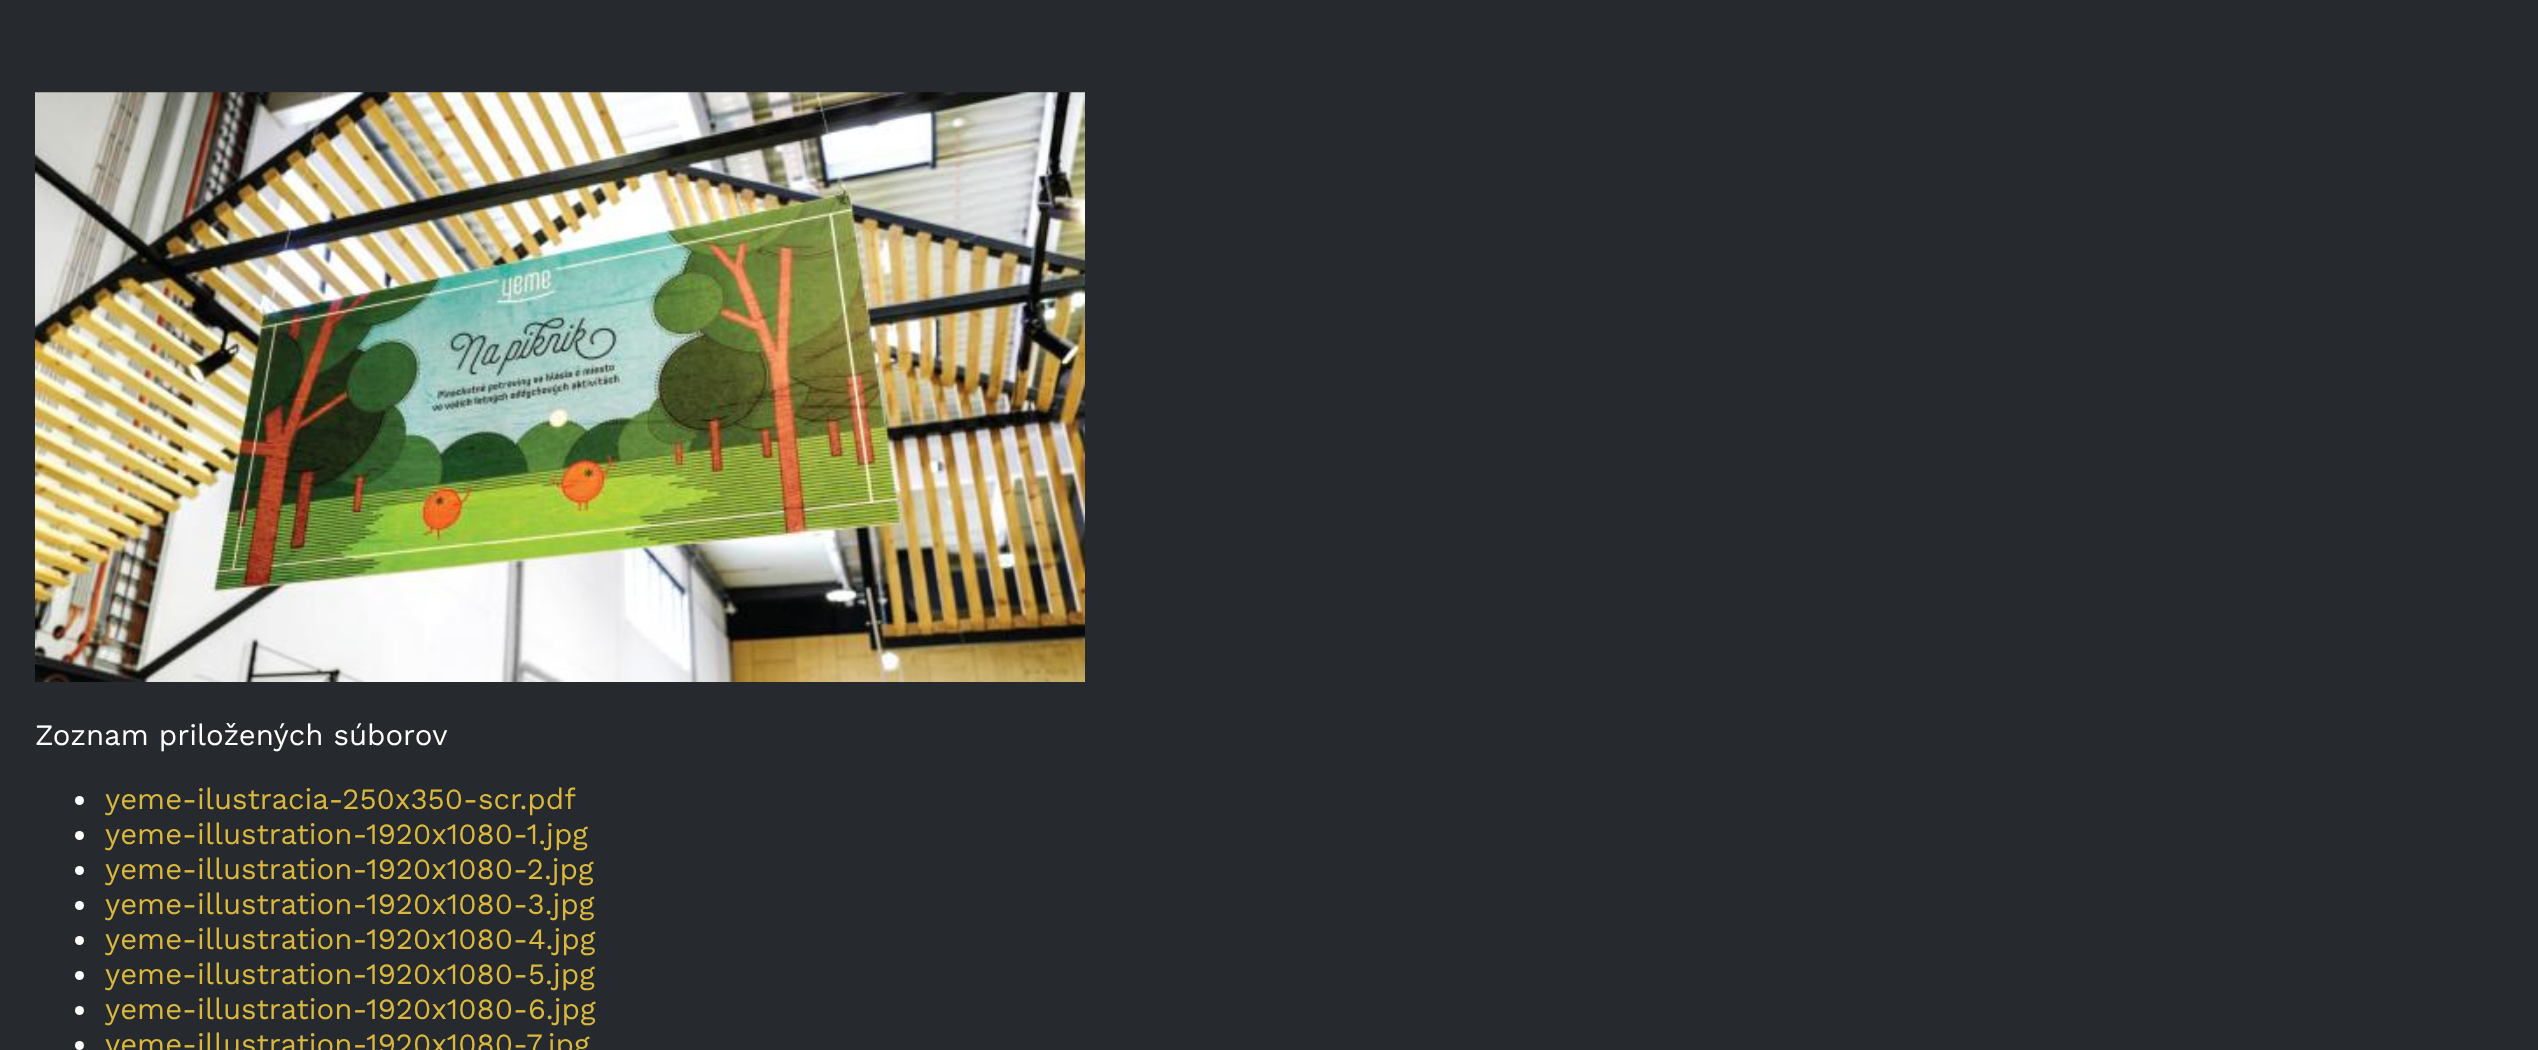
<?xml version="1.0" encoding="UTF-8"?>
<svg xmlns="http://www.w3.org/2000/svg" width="2538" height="1050">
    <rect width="100%" height="100%" fill="#26292D"/>
    <image x="35" y="92" width="1050" height="590" href="img_01.png"/>
    <text x="35" y="745" font-family="Work Sans" font-size="29.4" fill="#FFFFFF">Zoznam priložených súborov</text>
    <circle cx="79.5" cy="800.5" r="4.5" fill="#FFFFFF"/>
    <text x="105" y="809" font-family="Work Sans" font-size="29.4" fill="#D9B83D">yeme-ilustracia-250x350-scr.pdf</text>
    <circle cx="79.5" cy="835.5" r="4.5" fill="#FFFFFF"/>
    <text x="105" y="844" font-family="Work Sans" font-size="29.4" fill="#D9B83D">yeme-illustration-1920x1080-1.jpg</text>
    <circle cx="79.5" cy="870.5" r="4.5" fill="#FFFFFF"/>
    <text x="105" y="879" font-family="Work Sans" font-size="29.4" fill="#D9B83D">yeme-illustration-1920x1080-2.jpg</text>
    <circle cx="79.5" cy="905.5" r="4.5" fill="#FFFFFF"/>
    <text x="105" y="914" font-family="Work Sans" font-size="29.4" fill="#D9B83D">yeme-illustration-1920x1080-3.jpg</text>
    <circle cx="79.5" cy="940.5" r="4.5" fill="#FFFFFF"/>
    <text x="105" y="949" font-family="Work Sans" font-size="29.4" fill="#D9B83D">yeme-illustration-1920x1080-4.jpg</text>
    <circle cx="79.5" cy="975.5" r="4.5" fill="#FFFFFF"/>
    <text x="105" y="984" font-family="Work Sans" font-size="29.4" fill="#D9B83D">yeme-illustration-1920x1080-5.jpg</text>
    <circle cx="79.5" cy="1010.5" r="4.5" fill="#FFFFFF"/>
    <text x="105" y="1019" font-family="Work Sans" font-size="29.4" fill="#D9B83D">yeme-illustration-1920x1080-6.jpg</text>
    <circle cx="79.5" cy="1045.5" r="4.5" fill="#FFFFFF"/>
    <text x="105" y="1054" font-family="Work Sans" font-size="29.4" fill="#D9B83D">yeme-illustration-1920x1080-7.jpg</text>
</svg>
